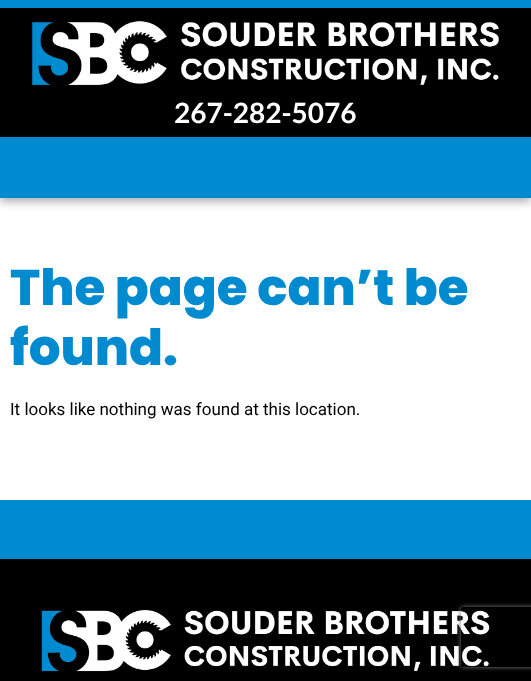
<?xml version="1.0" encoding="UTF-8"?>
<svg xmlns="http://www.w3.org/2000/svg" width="531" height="681">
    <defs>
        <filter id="blur1" x="-50%" y="-200%" width="200%" height="500%"><feGaussianBlur stdDeviation="4"/></filter>
        <clipPath id="clip1"><path d="M 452 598 H 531 V 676 H 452 Z M 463 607 H 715 C 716 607 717 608 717 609 V 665 C 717 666 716 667 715 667 H 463 C 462 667 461 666 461 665 V 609 C 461 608 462 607 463 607 Z" clip-rule="evenodd"/></clipPath>
        <filter id="blur2" x="-50%" y="-200%" width="200%" height="500%"><feGaussianBlur stdDeviation="2.5"/></filter>
    </defs>
    <rect width="100%" height="100%" fill="#FFFFFF"/>
    <rect x="0" y="8" width="531" height="129" fill="#000000"/>
    <rect x="0" y="0" width="531" height="8" fill="#008ACF"/>
    <image x="32" y="21" width="467" height="65" href="img_01.png"/>
    <text x="174" y="123" font-family="Lato" font-size="28" font-weight="700" fill="#FFFFFF">267-282-5076</text>
    <rect x="0" y="141" width="531" height="61" fill="#000000" fill-opacity="0.3" filter="url(#blur1)"/>
    <rect x="0" y="137" width="531" height="61" fill="#008ACF"/>
    <text font-family="Poppins" font-size="50" font-weight="800" fill="#008ACF">
        <tspan x="10" y="305">The page can’t be</tspan>
        <tspan x="10" y="365">found.</tspan>
    </text>
    <text x="10" y="415" font-family="Roboto" font-size="17" fill="#000000">It looks like nothing was found at this location.</text>
    <rect x="0" y="500" width="531" height="59" fill="#008ACF"/>
    <rect x="0" y="559" width="531" height="122" fill="#000000"/>
    <image x="41" y="609" width="449" height="63" href="img_02.png"/>
    <g clip-path="url(#clip1)">
        <rect x="461" y="607" width="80" height="60" rx="2" fill="#808080" filter="url(#blur2)"/>
    </g>
</svg>
